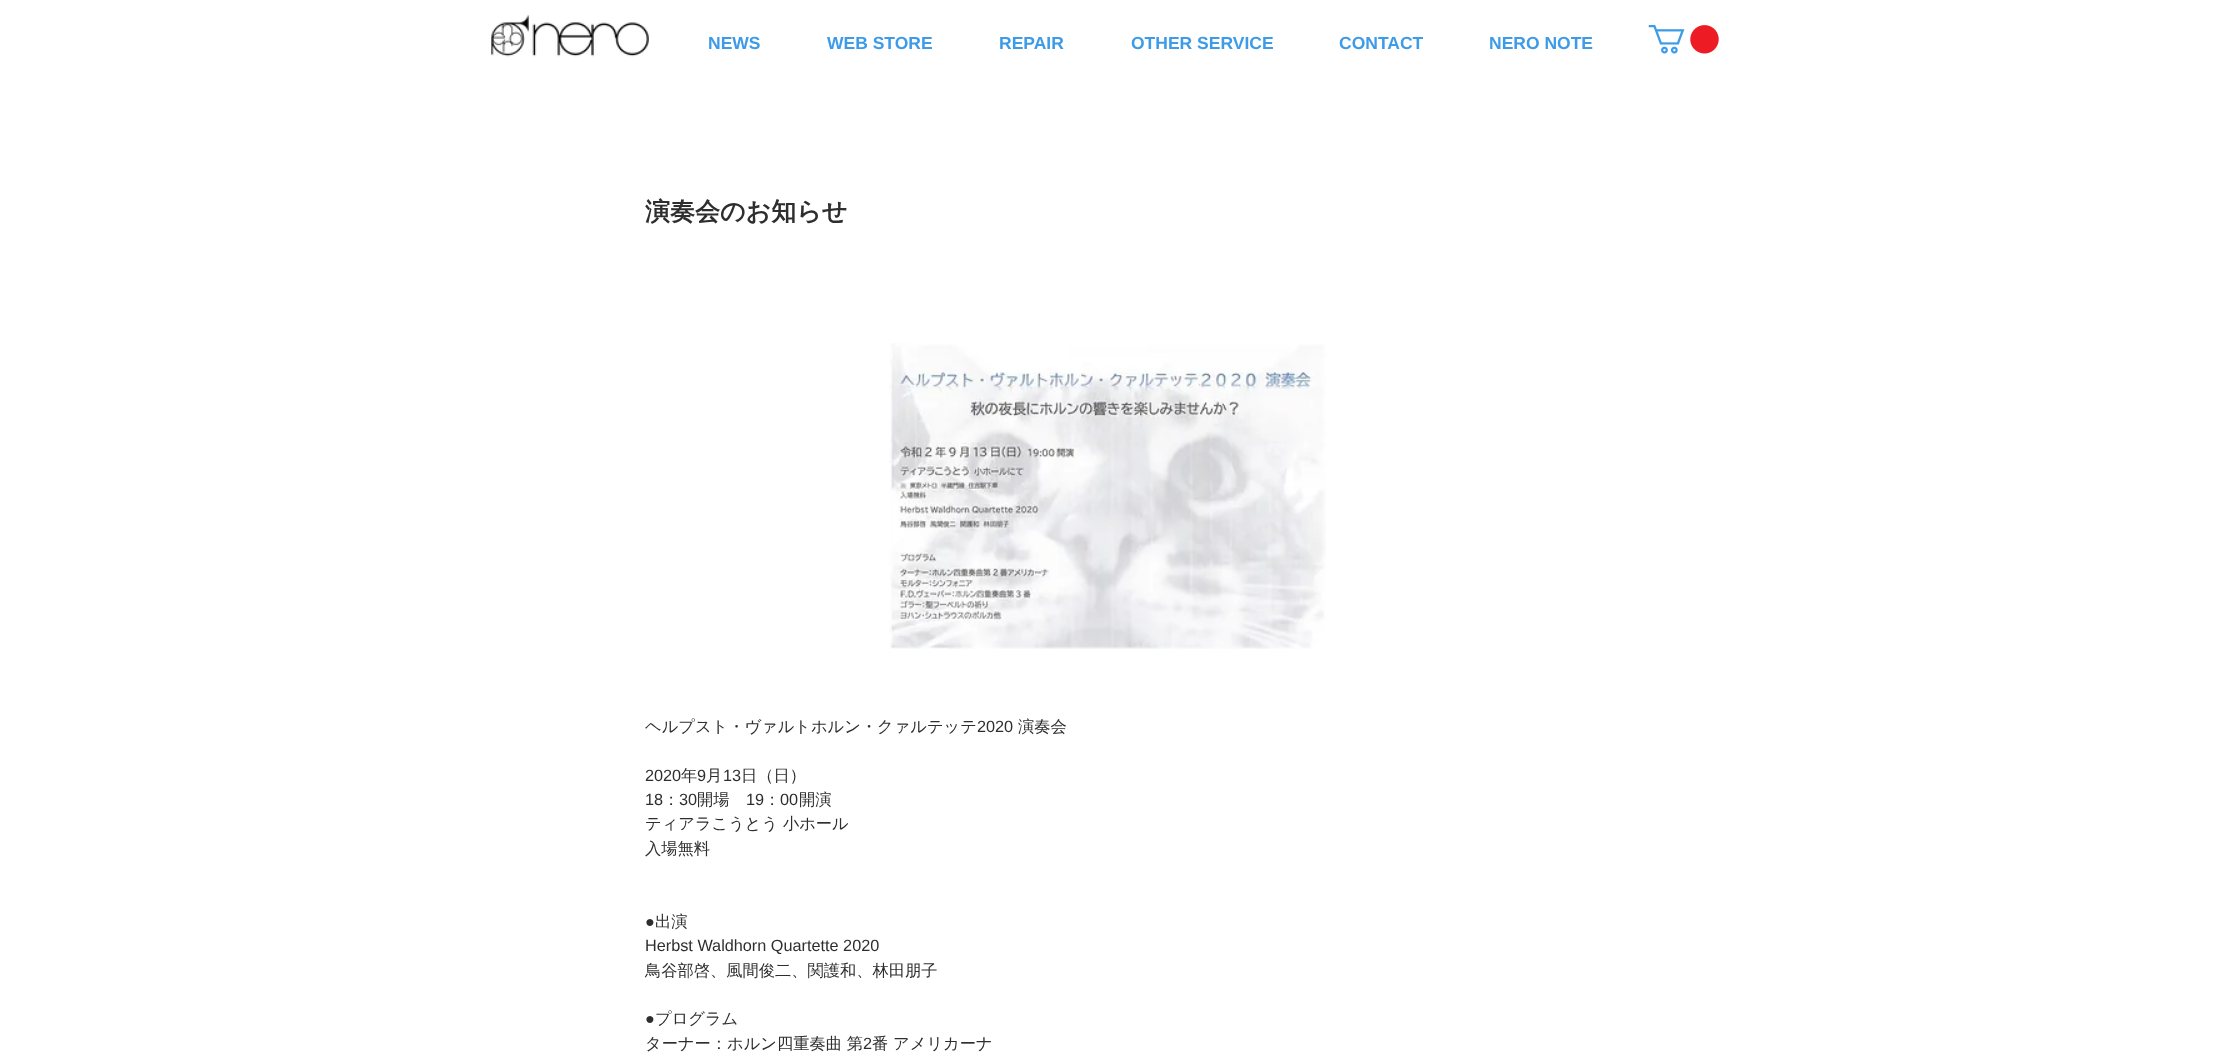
<?xml version="1.0" encoding="UTF-8"?>
<svg xmlns="http://www.w3.org/2000/svg" width="2215" height="1058">
    <rect width="100%" height="100%" fill="#FFFFFF"/>
    <image x="491" y="14" width="158" height="43" href="img_01.png"/>
    <text x="708" y="49" font-family="Liberation Sans" font-size="17.5" font-weight="700" fill="#3D9BE8">NEWS</text>
    <text x="827" y="49" font-family="Liberation Sans" font-size="17.5" font-weight="700" fill="#3D9BE8">WEB STORE</text>
    <text x="999" y="49" font-family="Liberation Sans" font-size="17.5" font-weight="700" fill="#3D9BE8">REPAIR</text>
    <text x="1131" y="49" font-family="Liberation Sans" font-size="17.5" font-weight="700" fill="#3D9BE8">OTHER SERVICE</text>
    <text x="1339" y="49" font-family="Liberation Sans" font-size="17.5" font-weight="700" fill="#3D9BE8">CONTACT</text>
    <text x="1489" y="49" font-family="Liberation Sans" font-size="17.5" font-weight="700" fill="#3D9BE8">NERO NOTE</text>
    <image x="1648" y="25" width="71" height="29" href="img_02.png"/>
    <text x="645" y="220" font-family="WenQuanYi Zen Hei" font-size="25" font-weight="700" fill="#2F2E2E">演奏会のお知らせ</text>
    <image x="889" y="343" width="437" height="306" href="img_03.png"/>
    <text x="645" y="732" font-family="WenQuanYi Zen Hei" font-size="16.25" font-weight="500" fill="#2F2E2E">ヘルプスト・ヴァルトホルン・クァルテッテ</text>
    <text x="977" y="732" font-family="Liberation Sans" font-size="16.25" fill="#2F2E2E">2020</text>
    <text x="1018" y="732" font-family="WenQuanYi Zen Hei" font-size="16.25" font-weight="500" fill="#2F2E2E">演奏会</text>
    <text x="645" y="781" font-family="Liberation Sans" font-size="16.25" fill="#2F2E2E">2020</text>
    <text x="681" y="781" font-family="WenQuanYi Zen Hei" font-size="16.25" font-weight="500" fill="#2F2E2E">年</text>
    <text x="697" y="781" font-family="Liberation Sans" font-size="16.25" fill="#2F2E2E">9</text>
    <text x="706" y="781" font-family="WenQuanYi Zen Hei" font-size="16.25" font-weight="500" fill="#2F2E2E">月</text>
    <text x="723" y="781" font-family="Liberation Sans" font-size="16.25" fill="#2F2E2E">13</text>
    <text x="741" y="781" font-family="WenQuanYi Zen Hei" font-size="16.25" font-weight="500" fill="#2F2E2E">日（日）</text>
    <text x="645" y="805" font-family="Liberation Sans" font-size="16.25" fill="#2F2E2E">18</text>
    <text x="663" y="805" font-family="WenQuanYi Zen Hei" font-size="16.25" font-weight="500" fill="#2F2E2E">：</text>
    <text x="679" y="805" font-family="Liberation Sans" font-size="16.25" fill="#2F2E2E">30</text>
    <text x="697" y="805" font-family="WenQuanYi Zen Hei" font-size="16.25" font-weight="500" fill="#2F2E2E">開場</text>
    <text x="746" y="805" font-family="Liberation Sans" font-size="16.25" fill="#2F2E2E">19</text>
    <text x="764" y="805" font-family="WenQuanYi Zen Hei" font-size="16.25" font-weight="500" fill="#2F2E2E">：</text>
    <text x="780" y="805" font-family="Liberation Sans" font-size="16.25" fill="#2F2E2E">00</text>
    <text x="799" y="805" font-family="WenQuanYi Zen Hei" font-size="16.25" font-weight="500" fill="#2F2E2E">開演</text>
    <text font-family="WenQuanYi Zen Hei" font-size="16.25" font-weight="500" fill="#2F2E2E">
        <tspan x="645" y="829">ティアラこうとう 小ホール</tspan>
        <tspan x="645" y="854">入場無料</tspan>
    </text>
    <text x="645" y="927" font-family="Liberation Sans" font-size="16.25" fill="#2F2E2E">●</text>
    <text x="655" y="927" font-family="WenQuanYi Zen Hei" font-size="16.25" font-weight="500" fill="#2F2E2E">出演</text>
    <text x="645" y="951" font-family="Liberation Sans" font-size="16.25" fill="#2F2E2E">Herbst Waldhorn Quartette 2020</text>
    <text x="645" y="976" font-family="WenQuanYi Zen Hei" font-size="16.25" font-weight="500" fill="#2F2E2E">鳥谷部啓、風間俊二、関護和、林田朋子</text>
    <text x="645" y="1024" font-family="Liberation Sans" font-size="16.25" fill="#2F2E2E">●</text>
    <text x="655" y="1024" font-family="WenQuanYi Zen Hei" font-size="16.25" font-weight="500" fill="#2F2E2E">プログラム</text>
    <text x="645" y="1049" font-family="WenQuanYi Zen Hei" font-size="16.25" font-weight="500" fill="#2F2E2E">ターナー：ホルン四重奏曲 第</text>
    <text x="863" y="1049" font-family="Liberation Sans" font-size="16.25" fill="#2F2E2E">2</text>
    <text x="872" y="1049" font-family="WenQuanYi Zen Hei" font-size="16.25" font-weight="500" fill="#2F2E2E">番 アメリカーナ</text>
</svg>
